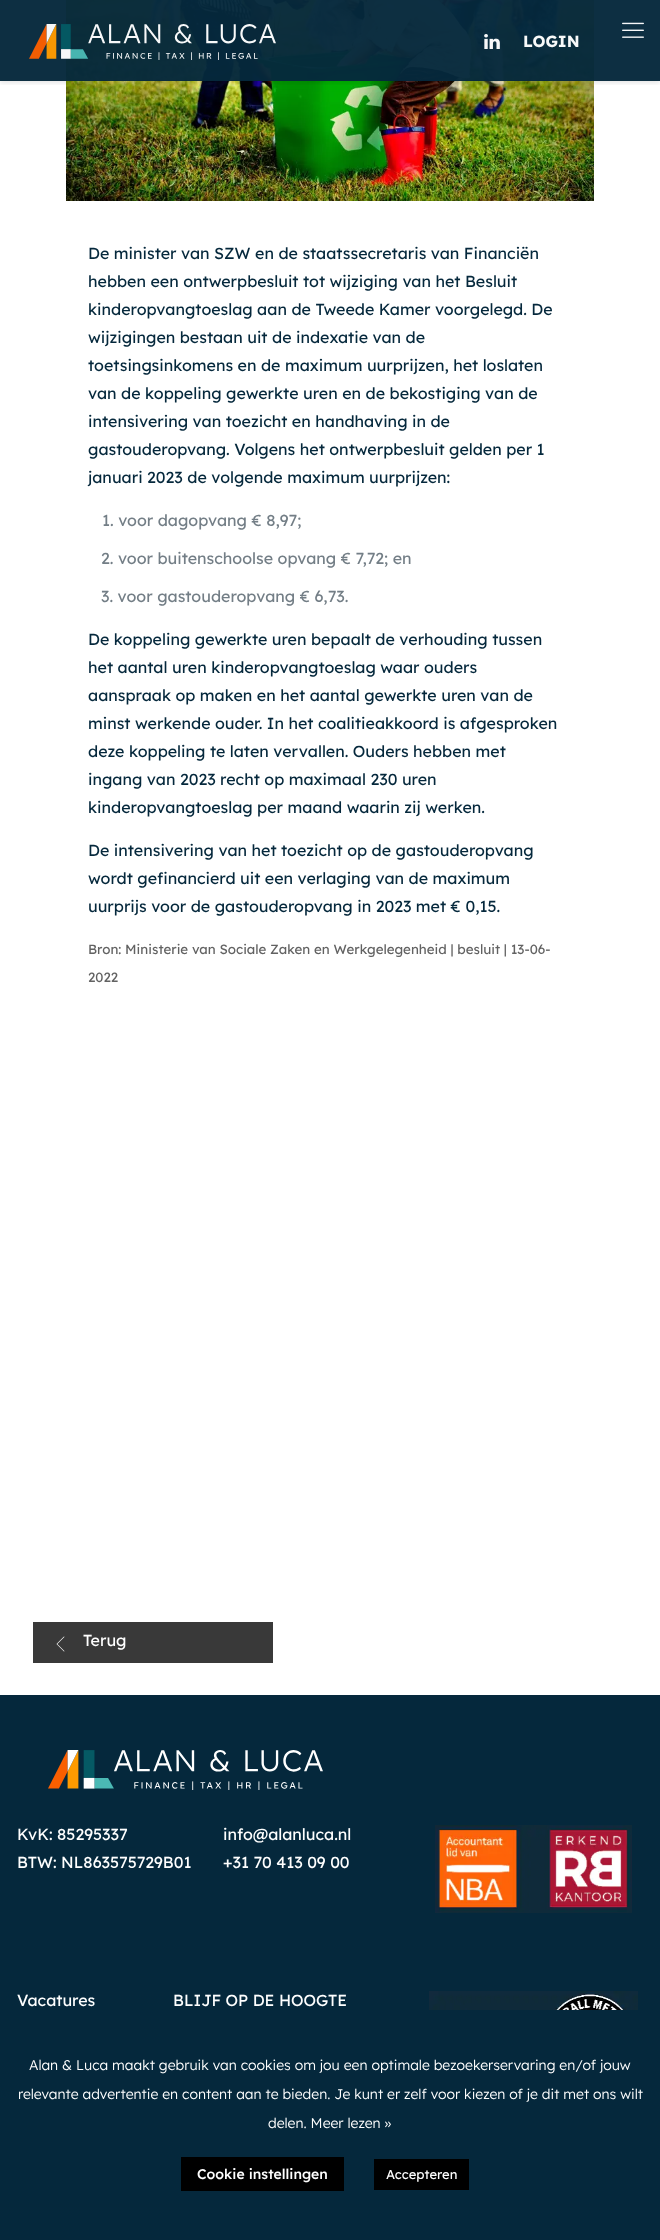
<?xml version="1.0" encoding="UTF-8"?>
<svg xmlns="http://www.w3.org/2000/svg" width="660" height="2240">
    <defs>
        <clipPath id="clip1"><rect x="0" y="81" width="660" height="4"/></clipPath>
        <filter id="blur1" x="-50%" y="-200%" width="200%" height="500%"><feGaussianBlur stdDeviation="2.5"/></filter>
    </defs>
    <rect width="100%" height="100%" fill="#FFFFFF"/>
    <image x="66" y="0" width="528" height="201" href="img_04.png"/>
    <g clip-path="url(#clip1)">
        <rect x="0" y="2" width="660" height="81" fill="#000000" fill-opacity="0.1" filter="url(#blur1)"/>
    </g>
    <rect x="0" y="0" width="660" height="81" fill="#05283C" fill-opacity="0.97"/>
    <image x="29" y="24" width="247" height="36" href="img_01.png"/>
    <image x="622" y="22" width="22" height="16" href="img_02.png"/>
    <image x="484" y="34" width="16" height="15" href="img_03.png"/>
    <text x="523" y="47" font-family="Lexend Deca" font-size="16" font-weight="700" fill="#F8F9F9">LOGIN</text>
    <text font-family="Lexend Deca" font-size="16" fill="#05283C">
        <tspan x="88" y="259">De minister van SZW en de staatssecretaris van Financiën</tspan>
        <tspan x="88" y="287">hebben een ontwerpbesluit tot wijziging van het Besluit</tspan>
        <tspan x="88" y="315">kinderopvangtoeslag aan de Tweede Kamer voorgelegd. De</tspan>
        <tspan x="88" y="343">wijzigingen bestaan uit de indexatie van de</tspan>
        <tspan x="88" y="371">toetsingsinkomens en de maximum uurprijzen, het loslaten</tspan>
        <tspan x="88" y="399">van de koppeling gewerkte uren en de bekostiging van de</tspan>
        <tspan x="88" y="427">intensivering van toezicht en handhaving in de</tspan>
        <tspan x="88" y="455">gastouderopvang. Volgens het ontwerpbesluit gelden per 1</tspan>
        <tspan x="88" y="483">januari 2023 de volgende maximum uurprijzen:</tspan>
    </text>
    <text x="102" y="526" font-family="Lexend Deca" font-size="16" fill="#737E86">1. voor dagopvang € 8,97;</text>
    <text x="101" y="564" font-family="Lexend Deca" font-size="16" fill="#737E86">2. voor buitenschoolse opvang € 7,72; en</text>
    <text x="101" y="602" font-family="Lexend Deca" font-size="16" fill="#737E86">3. voor gastouderopvang € 6,73.</text>
    <text font-family="Lexend Deca" font-size="16" fill="#05283C">
        <tspan x="88" y="645">De koppeling gewerkte uren bepaalt de verhouding tussen</tspan>
        <tspan x="88" y="673">het aantal uren kinderopvangtoeslag waar ouders</tspan>
        <tspan x="88" y="701">aanspraak op maken en het aantal gewerkte uren van de</tspan>
        <tspan x="88" y="729">minst werkende ouder. In het coalitieakkoord is afgesproken</tspan>
        <tspan x="88" y="757">deze koppeling te laten vervallen. Ouders hebben met</tspan>
        <tspan x="88" y="785">ingang van 2023 recht op maximaal 230 uren</tspan>
        <tspan x="88" y="813">kinderopvangtoeslag per maand waarin zij werken.</tspan>
    </text>
    <text font-family="Lexend Deca" font-size="16" fill="#05283C">
        <tspan x="88" y="856">De intensivering van het toezicht op de gastouderopvang</tspan>
        <tspan x="88" y="884">wordt gefinancierd uit een verlaging van de maximum</tspan>
        <tspan x="88" y="912">uurprijs voor de gastouderopvang in 2023 met € 0,15.</tspan>
    </text>
    <text x="88" y="954" font-family="Lexend Deca" font-size="13.35" fill="#626262">Bron: Ministerie van Sociale Zaken en Werkgelegenheid | besluit | 13-06-</text>
    <text x="88" y="982" font-family="Lexend Deca" font-size="13.35" fill="#626262">2022</text>
    <rect x="33" y="1622" width="240" height="41" fill="#393939"/>
    <image x="56" y="1636" width="9" height="16" href="img_05.png"/>
    <text x="83" y="1646" font-family="Lexend Deca" font-size="16" fill="#FFFFFF">Terug</text>
    <rect x="0" y="1695" width="660" height="545" fill="#05283C"/>
    <image x="48" y="1750" width="275" height="40" href="img_06.png"/>
    <text font-family="Lexend Deca" font-size="16" fill="#FFFFFF">
        <tspan x="17" y="1840">KvK: 85295337</tspan>
        <tspan x="17" y="1868">BTW: NL863575729B01</tspan>
    </text>
    <text font-family="Lexend Deca" font-size="16" fill="#FFFFFF">
        <tspan x="223" y="1840">info@alanluca.nl</tspan>
        <tspan x="223" y="1868">+31 70 413 09 00</tspan>
    </text>
    <image x="435" y="1825" width="197" height="88" href="img_07.png"/>
    <text x="17" y="2006" font-family="Lexend Deca" font-size="16" fill="#FFFFFF">Vacatures</text>
    <text x="173" y="2006" font-family="Lexend Deca" font-size="16" fill="#FFFFFF">BLIJF OP DE HOOGTE</text>
    <image x="429" y="1991" width="209" height="19" href="img_08.png"/>
    <text x="29" y="2070" font-family="Lexend Deca" font-size="14" font-weight="300" fill="#FFFFFF">Alan &amp; Luca maakt gebruik van cookies om jou een optimale bezoekerservaring en/of jouw</text>
    <text x="18" y="2099" font-family="Lexend Deca" font-size="14" font-weight="300" fill="#FFFFFF">relevante advertentie en content aan te bieden. Je kunt er zelf voor kiezen of je dit met ons wilt</text>
    <text x="268" y="2128" font-family="Lexend Deca" font-size="14" font-weight="300" fill="#FFFFFF">delen. Meer lezen »</text>
    <rect x="181" y="2157" width="163" height="34" fill="#000000"/>
    <text x="197" y="2179" font-family="Lexend Deca" font-size="14" font-weight="500" fill="#FFFFFF">Cookie instellingen</text>
    <rect x="374" y="2159" width="95" height="31" fill="#000000"/>
    <text x="386" y="2179" font-family="Lexend Deca" font-size="13" fill="#FFFFFF">Accepteren</text>
</svg>
